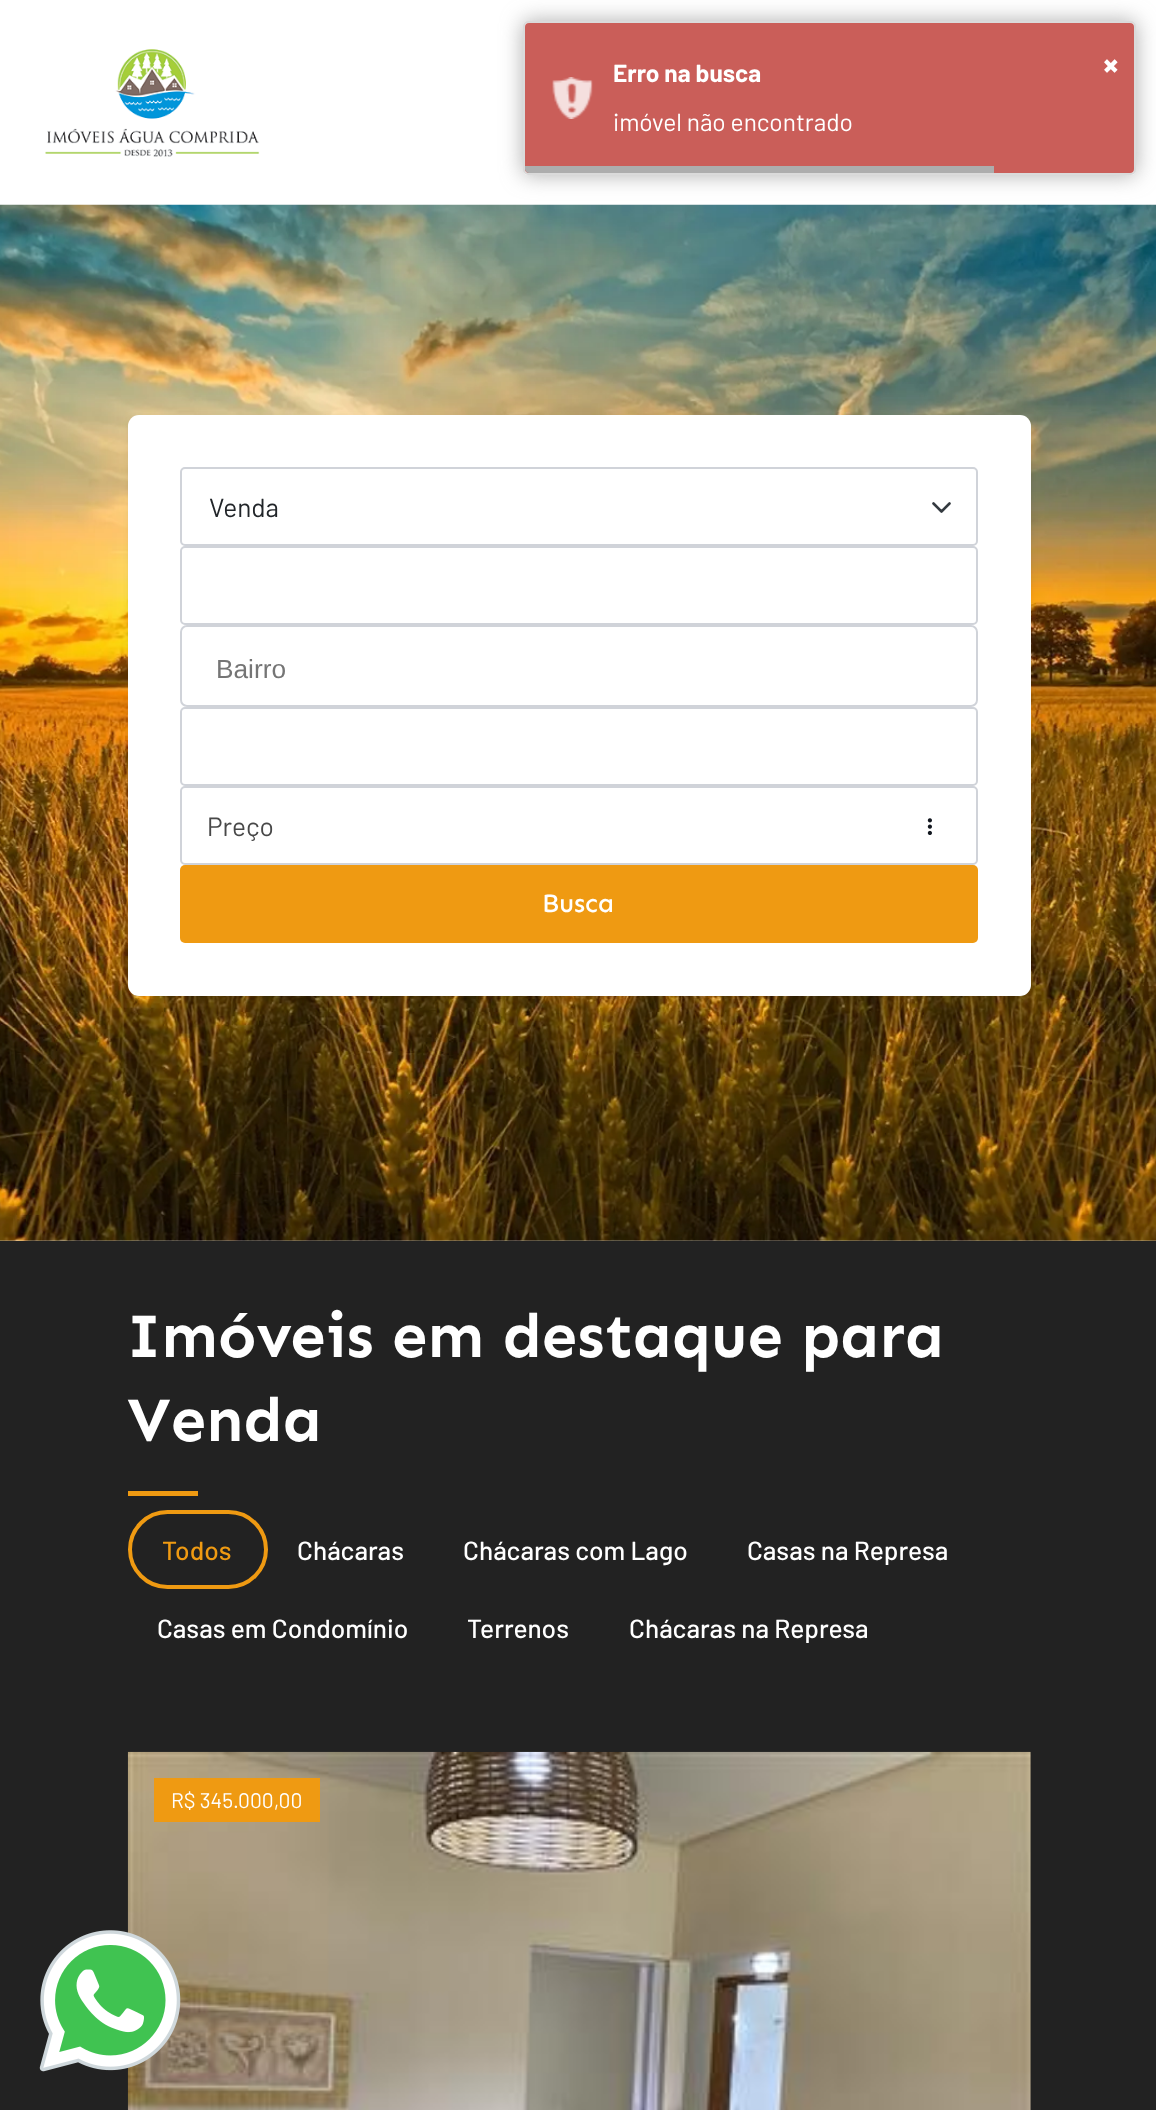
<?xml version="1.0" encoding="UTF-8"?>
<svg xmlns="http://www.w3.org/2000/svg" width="1156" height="2110">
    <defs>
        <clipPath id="clip1"><path d="M 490 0 H 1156 V 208 H 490 Z M 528 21 H 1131 C 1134 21 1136 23 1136 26 V 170 C 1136 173 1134 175 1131 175 H 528 C 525 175 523 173 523 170 V 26 C 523 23 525 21 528 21 Z" clip-rule="evenodd"/></clipPath>
        <filter id="blur1" x="-50%" y="-200%" width="200%" height="500%"><feGaussianBlur stdDeviation="10.5"/></filter>
        <filter id="blur2" x="-50%" y="-200%" width="200%" height="500%"><feGaussianBlur stdDeviation="3.5"/></filter>
    </defs>
    <rect width="100%" height="100%" fill="#FFFFFF"/>
    <image x="0" y="204" width="1156" height="1037" href="img_03.png"/>
    <g clip-path="url(#clip1)">
        <rect x="523" y="21" width="613" height="154" rx="5" fill="#ADADAD" filter="url(#blur1)"/>
    </g>
    <rect x="525" y="23" width="609" height="150" rx="4" fill="#CA5E59"/>
    <image x="552" y="77" width="41" height="42" href="img_01.png"/>
    <rect x="524" y="22" width="611" height="152" rx="4" fill="none" stroke="#333333" stroke-opacity="0.18" stroke-width="2"/>
    <text x="613" y="82" font-family="Barlow" font-size="24.5" font-weight="700" fill="#FFFFFF">Erro na busca</text>
    <text x="1103" y="77" font-family="Barlow" font-size="35" font-weight="700" fill="#FFFFFF">×</text>
    <text x="613" y="131" font-family="Barlow" font-size="24.5" fill="#FFFFFF">imóvel não encontrado</text>
    <path d="M 525 166 H 994 V 173 H 529 C 527 173 525 171 525 169 Z" fill="#ADADAD"/>
    <image x="45" y="49" width="215" height="108" href="img_02.png"/>
    <rect x="128" y="418" width="903" height="581" rx="11" fill="#212529" fill-opacity="0.07" filter="url(#blur2)"/>
    <rect x="128" y="415" width="903" height="581" rx="11" fill="#FFFFFF"/>
    <path d="M 933.5 503.5 L 941.5 511.5 L 949.5 503.5" fill="none" stroke="#343A40" stroke-width="2.6" stroke-linecap="round" stroke-linejoin="round"/>
    <rect x="181" y="468" width="796" height="77" rx="4" fill="none" stroke="#D0D3D9" stroke-width="2"/>
    <text x="209" y="517" font-family="Barlow" font-size="26.25" fill="#212529">Venda</text>
    <rect x="181" y="547" width="796" height="77" rx="4" fill="none" stroke="#D0D3D9" stroke-width="2"/>
    <rect x="181" y="626" width="796" height="80" rx="6" fill="none" stroke="#D0D3D9" stroke-width="2"/>
    <text x="216" y="678" font-family="Liberation Sans" font-size="26.25" fill="#757575">Bairro</text>
    <rect x="181" y="708" width="796" height="77" rx="4" fill="none" stroke="#D0D3D9" stroke-width="2"/>
    <rect x="181" y="787" width="796" height="77" rx="4" fill="none" stroke="#D0D3D9" stroke-width="2"/>
    <text x="207" y="836" font-family="Barlow" font-size="26.25" fill="#484848">Preço</text>
    <image x="927" y="818" width="5" height="17" href="img_04.png"/>
    <rect x="180" y="865" width="798" height="78" rx="5" fill="#EF9A12"/>
    <text x="542" y="912" font-family="Sen" font-size="26.25" font-weight="500" fill="#FFFFFF">Busca</text>
    <rect x="0" y="1241" width="1156" height="869" fill="#222222"/>
    <text font-family="Sen" font-size="63" font-weight="700" fill="#FFFFFF">
        <tspan x="127" y="1357">Imóveis em destaque para</tspan>
        <tspan x="127" y="1441">Venda</tspan>
    </text>
    <rect x="128" y="1491" width="70" height="5" fill="#EF9A12"/>
    <rect x="130" y="1512" width="136" height="75" rx="37.5" fill="none" stroke="#EF9A12" stroke-width="4"/>
    <text x="162" y="1560" font-family="Barlow" font-size="26.25" font-weight="500" fill="#EF9A12">Todos</text>
    <text x="297" y="1560" font-family="Barlow" font-size="26.25" font-weight="500" fill="#FFFFFF">Chácaras</text>
    <text x="463" y="1560" font-family="Barlow" font-size="26.25" font-weight="500" fill="#FFFFFF">Chácaras com Lago</text>
    <text x="747" y="1560" font-family="Barlow" font-size="26.25" font-weight="500" fill="#FFFFFF">Casas na Represa</text>
    <text x="157" y="1638" font-family="Barlow" font-size="26.25" font-weight="500" fill="#FFFFFF">Casas em Condomínio</text>
    <text x="467" y="1638" font-family="Barlow" font-size="26.25" font-weight="500" fill="#FFFFFF">Terrenos</text>
    <text x="629" y="1638" font-family="Barlow" font-size="26.25" font-weight="500" fill="#FFFFFF">Chácaras na Represa</text>
    <image x="127" y="1751" width="904" height="359" href="img_05.png"/>
    <rect x="154" y="1778" width="166" height="44" fill="#EF9A12"/>
    <text x="171" y="1808" font-family="Barlow" font-size="21" fill="#FFFFFF">R$ 345.000,00</text>
    <image x="39" y="1930" width="142" height="142" href="img_06.png"/>
</svg>
